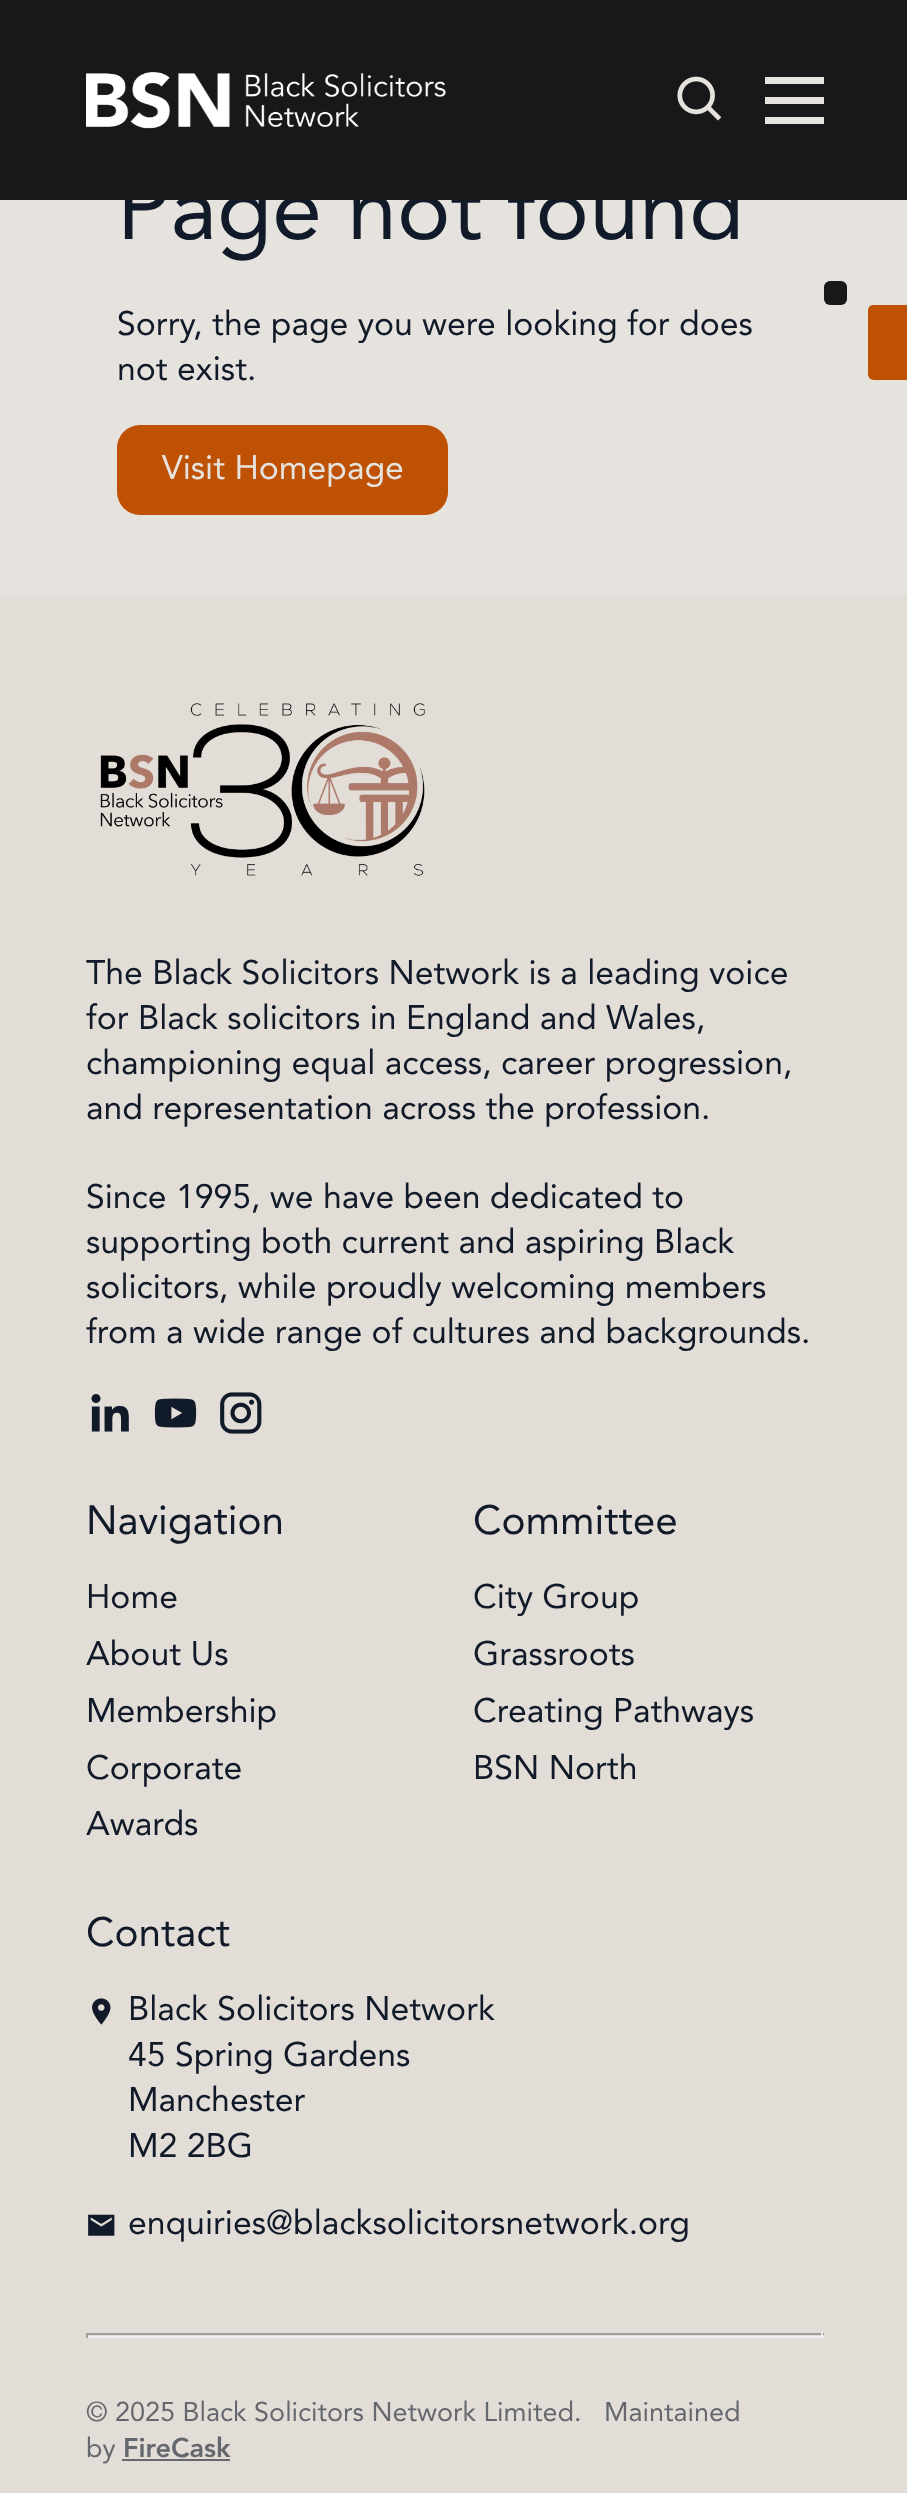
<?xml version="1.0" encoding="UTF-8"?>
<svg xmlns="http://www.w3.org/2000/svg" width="907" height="2493">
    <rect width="100%" height="100%" fill="#E6E3DE"/>
    <text x="117" y="239" font-family="Avenir" font-size="90" fill="#111A29">Page not found</text>
    <rect x="0" y="0" width="907" height="200" fill="#18181B"/>
    <image x="86" y="72" width="360" height="57" href="img_01.png"/>
    <image x="677" y="76" width="45" height="45" href="img_02.png"/>
    <rect x="765" y="77" width="59" height="7" fill="#E6E3DE"/>
    <rect x="765" y="97" width="59" height="7" fill="#E6E3DE"/>
    <rect x="765" y="117" width="59" height="7" fill="#E6E3DE"/>
    <text font-family="Avenir" font-size="33.75" fill="#111A29">
        <tspan x="117" y="335">Sorry, the page you were looking for does</tspan>
        <tspan x="117" y="380">not exist.</tspan>
    </text>
    <rect x="117" y="425" width="331" height="90" rx="23" fill="#BE5103"/>
    <text x="162" y="479" font-family="Avenir" font-size="33.75" fill="#E6E3DE">Visit Homepage</text>
    <path d="M 874 305 H 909 V 380 H 874 C 870 380 868 377 868 374 V 311 C 868 307 870 305 874 305 Z" fill="#BE5103"/>
    <rect x="824" y="281" width="23" height="24" rx="6" fill="#18181B"/>
    <rect x="0" y="596" width="907" height="1897" fill="#E3DDD7"/>
    <image x="100" y="703" width="325" height="173" href="img_03.png"/>
    <text font-family="Avenir" font-size="33.75" fill="#111A29">
        <tspan x="86" y="984">The Black Solicitors Network is a leading voice</tspan>
        <tspan x="86" y="1029">for Black solicitors in England and Wales,</tspan>
        <tspan x="86" y="1074">championing equal access, career progression,</tspan>
        <tspan x="86" y="1119">and representation across the profession.</tspan>
    </text>
    <text font-family="Avenir" font-size="33.75" fill="#111A29">
        <tspan x="86" y="1208">Since 1995, we have been dedicated to</tspan>
        <tspan x="86" y="1253">supporting both current and aspiring Black</tspan>
        <tspan x="86" y="1298">solicitors, while proudly welcoming members</tspan>
        <tspan x="86" y="1343">from a wide range of cultures and backgrounds.</tspan>
    </text>
    <image x="91" y="1394" width="38" height="38" href="img_04.png"/>
    <image x="154" y="1398" width="43" height="30" href="img_05.png"/>
    <image x="220" y="1392" width="42" height="42" href="img_06.png"/>
    <text x="86" y="1534" font-family="Avenir" font-size="40.5" fill="#111A29">Navigation</text>
    <text font-family="Avenir" font-size="33.75" fill="#111A29">
        <tspan x="86" y="1608">Home</tspan>
        <tspan x="86" y="1665">About Us</tspan>
        <tspan x="86" y="1722">Membership</tspan>
        <tspan x="86" y="1779">Corporate</tspan>
        <tspan x="86" y="1835">Awards</tspan>
    </text>
    <text x="473" y="1534" font-family="Avenir" font-size="40.5" fill="#111A29">Committee</text>
    <text font-family="Avenir" font-size="33.75" fill="#111A29">
        <tspan x="473" y="1608">City Group</tspan>
        <tspan x="473" y="1665">Grassroots</tspan>
        <tspan x="473" y="1722">Creating Pathways</tspan>
        <tspan x="473" y="1779">BSN North</tspan>
    </text>
    <text x="86" y="1946" font-family="Avenir" font-size="40.5" fill="#111A29">Contact</text>
    <image x="92" y="1998" width="19" height="27" href="img_07.png"/>
    <text font-family="Avenir" font-size="33.75" fill="#111A29">
        <tspan x="128" y="2020">Black Solicitors Network</tspan>
        <tspan x="128" y="2066">45 Spring Gardens</tspan>
        <tspan x="128" y="2111">Manchester</tspan>
        <tspan x="128" y="2157">M2 2BG</tspan>
    </text>
    <image x="88" y="2214" width="27" height="22" href="img_08.png"/>
    <text x="128" y="2234" font-family="Avenir" font-size="33.75" fill="#111A29">enquiries@blacksolicitorsnetwork.org</text>
    <rect x="86" y="2333" width="738" height="2" fill="#9F9F9F"/>
    <rect x="821" y="2333" width="2" height="5" fill="#EEEEEE"/>
    <rect x="86" y="2336" width="738" height="2" fill="#EEEEEE"/>
    <rect x="86" y="2333" width="2" height="5" fill="#9F9F9F"/>
    <text font-family="Avenir" font-size="27" fill="#65686F" xml:space="preserve"><tspan x="86" y="2421">© 2025 Black Solicitors Network Limited.   Maintained</tspan><tspan x="86" y="2457">by</tspan></text>
    <text x="123" y="2457" font-family="Avenir" font-size="27" font-weight="900" fill="#65686F">FireCask</text>
    <rect x="122" y="2459" width="108" height="2" fill="#65686F"/>
</svg>
